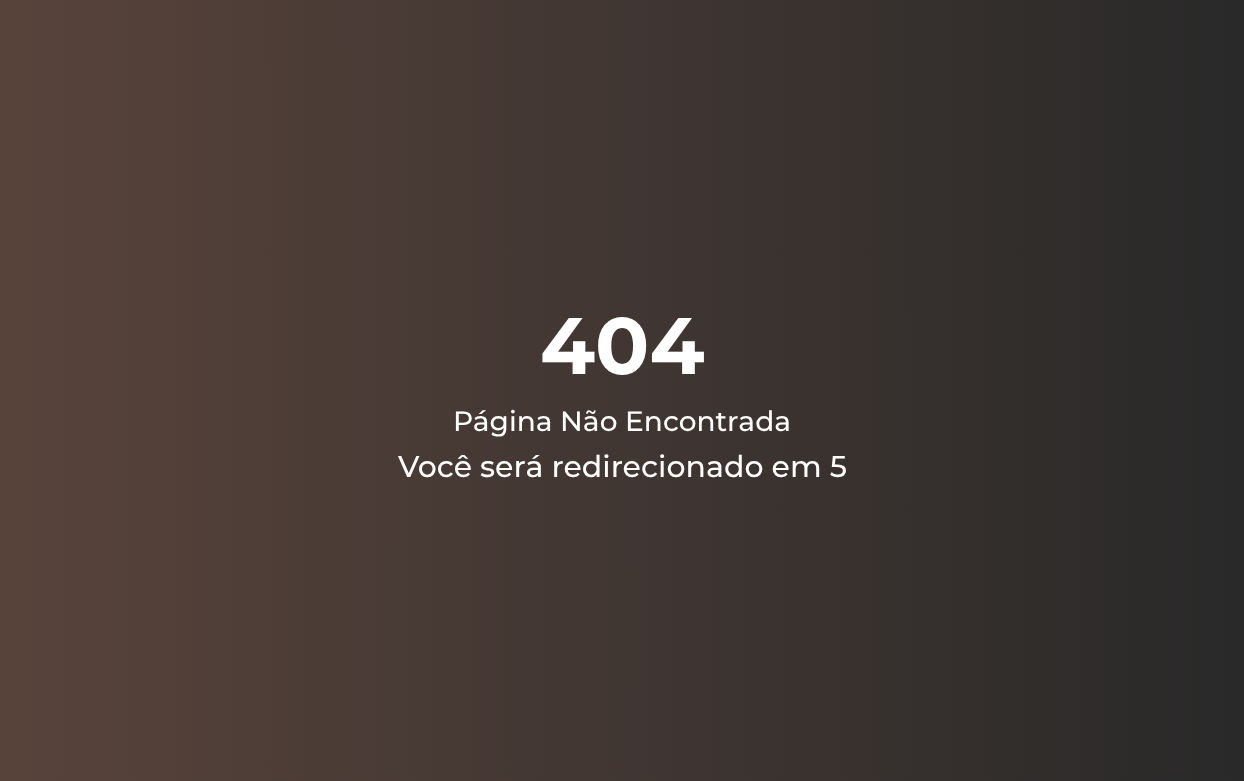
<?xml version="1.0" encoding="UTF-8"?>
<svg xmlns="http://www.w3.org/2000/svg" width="1244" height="781">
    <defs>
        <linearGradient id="g1" gradientUnits="userSpaceOnUse" x1="0" y1="391" x2="1244" y2="390"><stop offset="0" stop-color="#58433B"/><stop offset="1" stop-color="#292929"/></linearGradient>
    </defs>
    <rect width="100%" height="100%" fill="#FFFFFF"/>
    <rect x="0" y="0" width="1244" height="781" fill="url(#g1)"/>
    <text x="540" y="374" font-family="Montserrat" font-size="80" font-weight="700" fill="#FFFFFF">404</text>
    <text x="453" y="431" font-family="Montserrat" font-size="28" font-weight="500" fill="#FFFFFF">Página Não Encontrada</text>
    <text x="398" y="477" font-family="Montserrat" font-size="30" font-weight="500" fill="#FFFFFF">Você será redirecionado em 5</text>
</svg>
